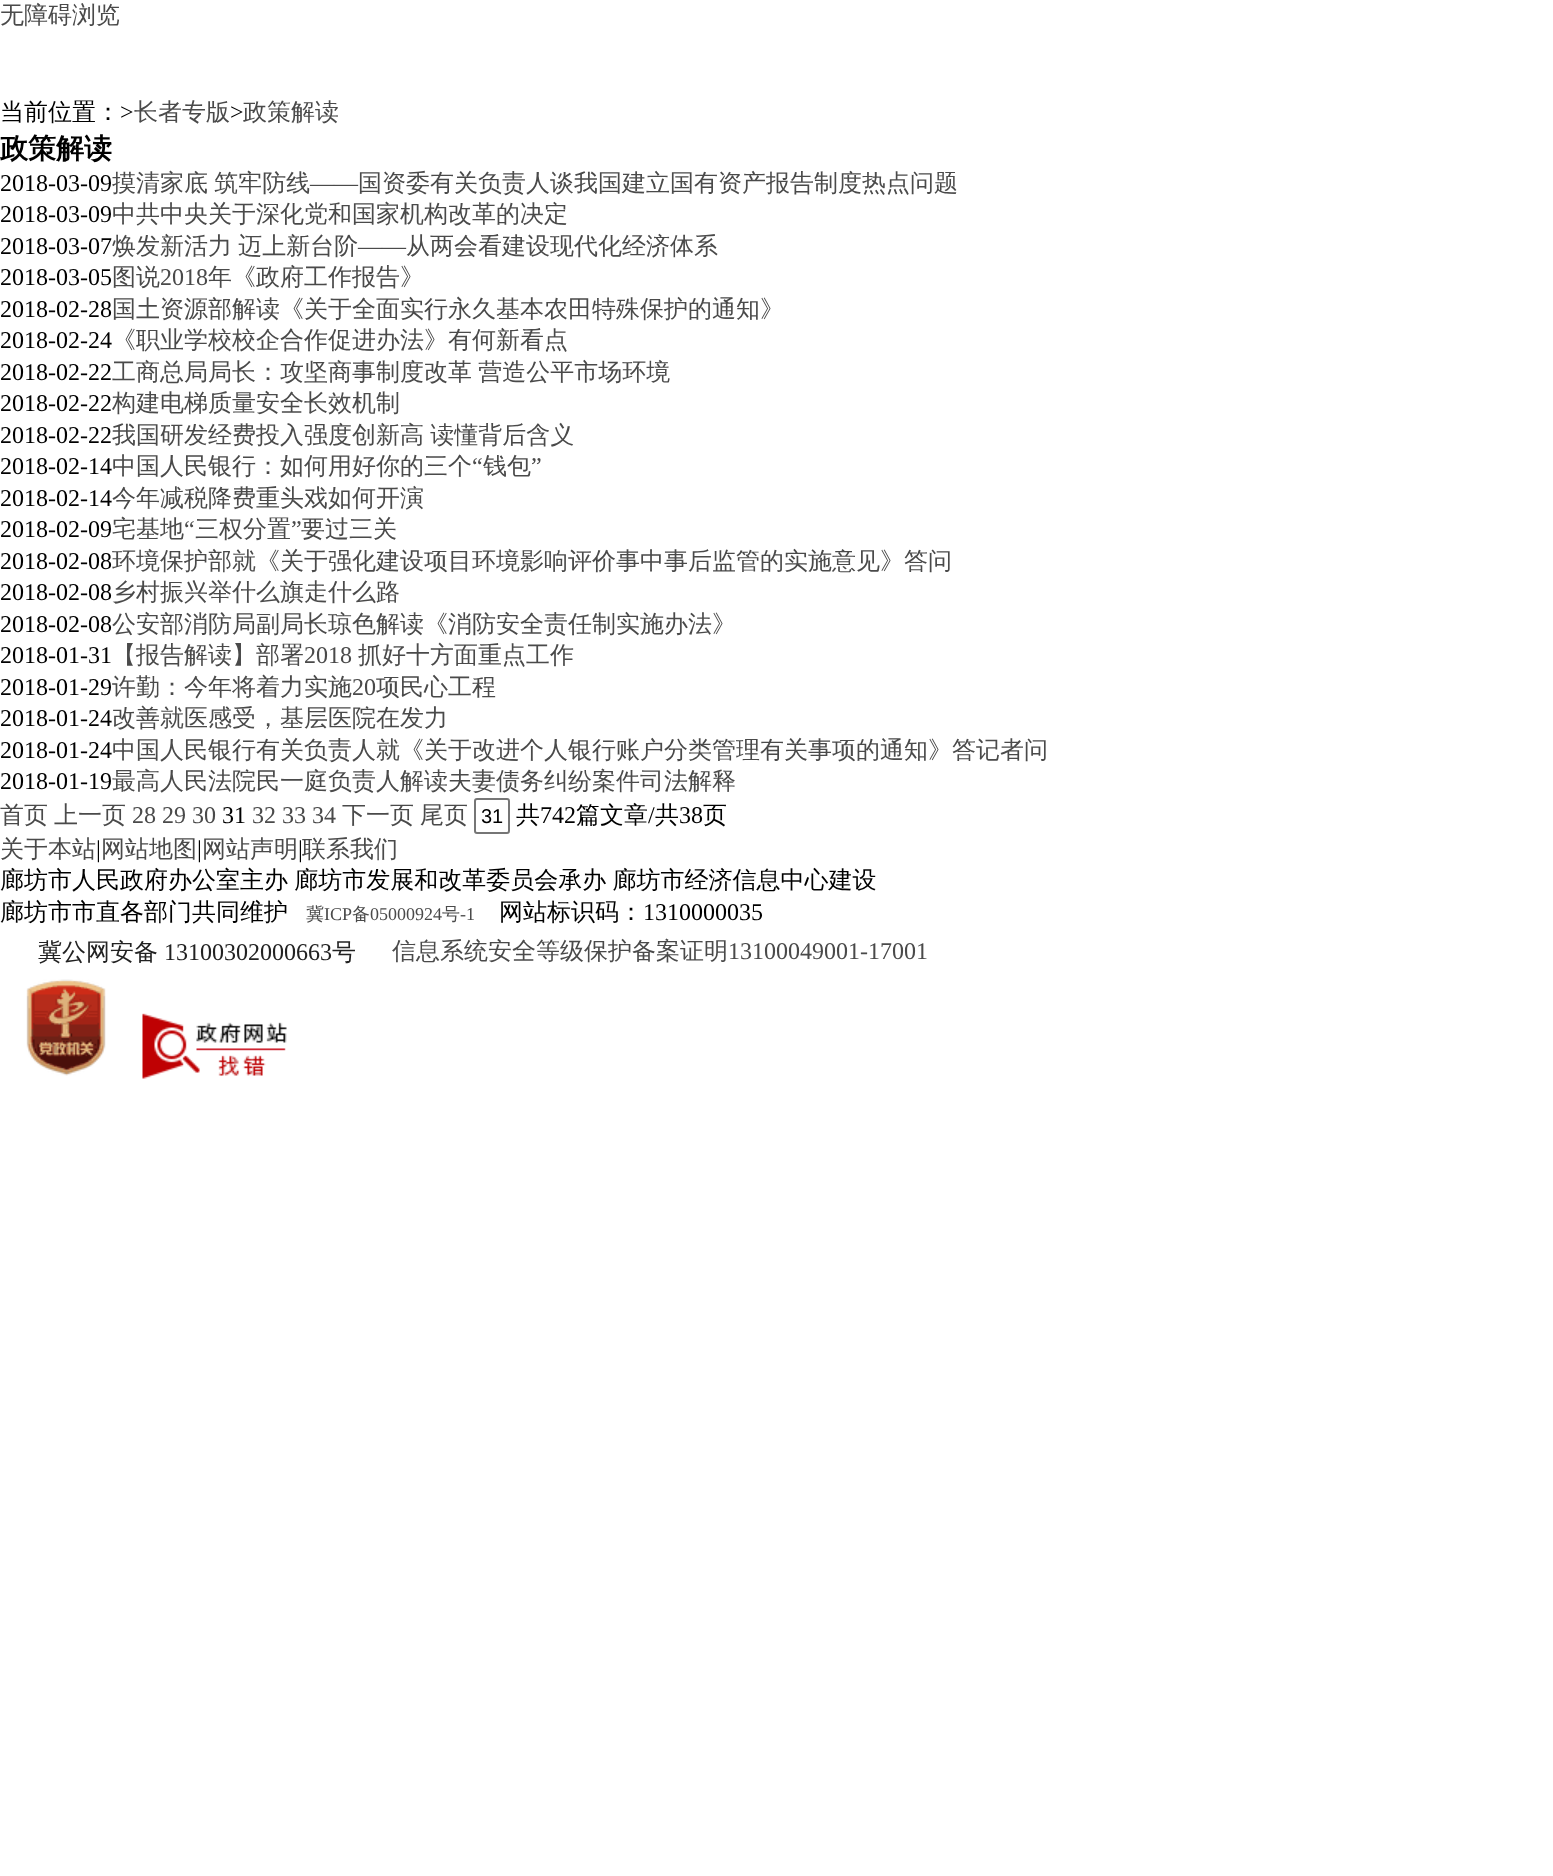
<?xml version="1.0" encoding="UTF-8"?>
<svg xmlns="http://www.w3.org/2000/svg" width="1553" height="1876">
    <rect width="100%" height="100%" fill="#FFFFFF"/>
    <text x="0" y="23" font-family="WenQuanYi Zen Hei" font-size="24" font-weight="500" fill="#4A4A4A">无障碍浏览</text>
    <text x="0" y="120" font-family="WenQuanYi Zen Hei" font-size="24" font-weight="500" fill="#000000">当前位置：</text>
    <text x="120" y="120" font-family="Liberation Serif" font-size="24" fill="#000000">&gt;</text>
    <text x="134" y="120" font-family="WenQuanYi Zen Hei" font-size="24" font-weight="500" fill="#4A4A4A">长者专版</text>
    <text x="230" y="120" font-family="Liberation Serif" font-size="24" fill="#000000">&gt;</text>
    <text x="243" y="120" font-family="WenQuanYi Zen Hei" font-size="24" font-weight="500" fill="#4A4A4A">政策解读</text>
    <text x="0" y="158" font-family="WenQuanYi Zen Hei" font-size="28" font-weight="700" fill="#000000">政策解读</text>
    <text x="0" y="191" font-family="Liberation Serif" font-size="24" fill="#000000">2018-03-09</text>
    <text x="112" y="191" word-spacing="-1" font-family="WenQuanYi Zen Hei" font-size="24" font-weight="500" fill="#4A4A4A">摸清家底 筑牢防线</text>
    <text x="310" y="191" font-family="Liberation Serif" font-size="24" fill="#4A4A4A">——</text>
    <text x="358" y="191" font-family="WenQuanYi Zen Hei" font-size="24" font-weight="500" fill="#4A4A4A">国资委有关负责人谈我国建立国有资产报告制度热点问题</text>
    <text x="0" y="222" font-family="Liberation Serif" font-size="24" fill="#000000">2018-03-09</text>
    <text x="112" y="222" font-family="WenQuanYi Zen Hei" font-size="24" font-weight="500" fill="#4A4A4A">中共中央关于深化党和国家机构改革的决定</text>
    <text x="0" y="254" font-family="Liberation Serif" font-size="24" fill="#000000">2018-03-07</text>
    <text x="112" y="254" word-spacing="-1" font-family="WenQuanYi Zen Hei" font-size="24" font-weight="500" fill="#4A4A4A">焕发新活力 迈上新台阶</text>
    <text x="358" y="254" font-family="Liberation Serif" font-size="24" fill="#4A4A4A">——</text>
    <text x="406" y="254" font-family="WenQuanYi Zen Hei" font-size="24" font-weight="500" fill="#4A4A4A">从两会看建设现代化经济体系</text>
    <text x="0" y="285" font-family="Liberation Serif" font-size="24" fill="#000000">2018-03-05</text>
    <text x="112" y="285" font-family="WenQuanYi Zen Hei" font-size="24" font-weight="500" fill="#4A4A4A">图说</text>
    <text x="160" y="285" font-family="Liberation Serif" font-size="24" fill="#4A4A4A">2018</text>
    <text x="208" y="285" font-family="WenQuanYi Zen Hei" font-size="24" font-weight="500" fill="#4A4A4A">年《政府工作报告》</text>
    <text x="0" y="317" font-family="Liberation Serif" font-size="24" fill="#000000">2018-02-28</text>
    <text x="112" y="317" font-family="WenQuanYi Zen Hei" font-size="24" font-weight="500" fill="#4A4A4A">国土资源部解读《关于全面实行永久基本农田特殊保护的通知》</text>
    <text x="0" y="348" font-family="Liberation Serif" font-size="24" fill="#000000">2018-02-24</text>
    <text x="112" y="348" font-family="WenQuanYi Zen Hei" font-size="24" font-weight="500" fill="#4A4A4A">《职业学校校企合作促进办法》有何新看点</text>
    <text x="0" y="380" font-family="Liberation Serif" font-size="24" fill="#000000">2018-02-22</text>
    <text x="112" y="380" word-spacing="-1" font-family="WenQuanYi Zen Hei" font-size="24" font-weight="500" fill="#4A4A4A">工商总局局长：攻坚商事制度改革 营造公平市场环境</text>
    <text x="0" y="411" font-family="Liberation Serif" font-size="24" fill="#000000">2018-02-22</text>
    <text x="112" y="411" font-family="WenQuanYi Zen Hei" font-size="24" font-weight="500" fill="#4A4A4A">构建电梯质量安全长效机制</text>
    <text x="0" y="443" font-family="Liberation Serif" font-size="24" fill="#000000">2018-02-22</text>
    <text x="112" y="443" word-spacing="-1" font-family="WenQuanYi Zen Hei" font-size="24" font-weight="500" fill="#4A4A4A">我国研发经费投入强度创新高 读懂背后含义</text>
    <text x="0" y="474" font-family="Liberation Serif" font-size="24" fill="#000000">2018-02-14</text>
    <text x="112" y="474" font-family="WenQuanYi Zen Hei" font-size="24" font-weight="500" fill="#4A4A4A">中国人民银行：如何用好你的三个</text>
    <text x="472" y="474" font-family="Liberation Serif" font-size="24" fill="#4A4A4A">“</text>
    <text x="483" y="474" font-family="WenQuanYi Zen Hei" font-size="24" font-weight="500" fill="#4A4A4A">钱包</text>
    <text x="531" y="474" font-family="Liberation Serif" font-size="24" fill="#4A4A4A">”</text>
    <text x="0" y="506" font-family="Liberation Serif" font-size="24" fill="#000000">2018-02-14</text>
    <text x="112" y="506" font-family="WenQuanYi Zen Hei" font-size="24" font-weight="500" fill="#4A4A4A">今年减税降费重头戏如何开演</text>
    <text x="0" y="537" font-family="Liberation Serif" font-size="24" fill="#000000">2018-02-09</text>
    <text x="112" y="537" font-family="WenQuanYi Zen Hei" font-size="24" font-weight="500" fill="#4A4A4A">宅基地</text>
    <text x="184" y="537" font-family="Liberation Serif" font-size="24" fill="#4A4A4A">“</text>
    <text x="195" y="537" font-family="WenQuanYi Zen Hei" font-size="24" font-weight="500" fill="#4A4A4A">三权分置</text>
    <text x="291" y="537" font-family="Liberation Serif" font-size="24" fill="#4A4A4A">”</text>
    <text x="301" y="537" font-family="WenQuanYi Zen Hei" font-size="24" font-weight="500" fill="#4A4A4A">要过三关</text>
    <text x="0" y="569" font-family="Liberation Serif" font-size="24" fill="#000000">2018-02-08</text>
    <text x="112" y="569" font-family="WenQuanYi Zen Hei" font-size="24" font-weight="500" fill="#4A4A4A">环境保护部就《关于强化建设项目环境影响评价事中事后监管的实施意见》答问</text>
    <text x="0" y="600" font-family="Liberation Serif" font-size="24" fill="#000000">2018-02-08</text>
    <text x="112" y="600" font-family="WenQuanYi Zen Hei" font-size="24" font-weight="500" fill="#4A4A4A">乡村振兴举什么旗走什么路</text>
    <text x="0" y="632" font-family="Liberation Serif" font-size="24" fill="#000000">2018-02-08</text>
    <text x="112" y="632" font-family="WenQuanYi Zen Hei" font-size="24" font-weight="500" fill="#4A4A4A">公安部消防局副局长琼色解读《消防安全责任制实施办法》</text>
    <text x="0" y="663" font-family="Liberation Serif" font-size="24" fill="#000000">2018-01-31</text>
    <text x="112" y="663" font-family="WenQuanYi Zen Hei" font-size="24" font-weight="500" fill="#4A4A4A">【报告解读】部署</text>
    <text x="304" y="663" font-family="Liberation Serif" font-size="24" fill="#4A4A4A">2018</text>
    <text x="358" y="663" font-family="WenQuanYi Zen Hei" font-size="24" font-weight="500" fill="#4A4A4A">抓好十方面重点工作</text>
    <text x="0" y="695" font-family="Liberation Serif" font-size="24" fill="#000000">2018-01-29</text>
    <text x="112" y="695" font-family="WenQuanYi Zen Hei" font-size="24" font-weight="500" fill="#4A4A4A">许勤：今年将着力实施</text>
    <text x="352" y="695" font-family="Liberation Serif" font-size="24" fill="#4A4A4A">20</text>
    <text x="376" y="695" font-family="WenQuanYi Zen Hei" font-size="24" font-weight="500" fill="#4A4A4A">项民心工程</text>
    <text x="0" y="726" font-family="Liberation Serif" font-size="24" fill="#000000">2018-01-24</text>
    <text x="112" y="726" font-family="WenQuanYi Zen Hei" font-size="24" font-weight="500" fill="#4A4A4A">改善就医感受，基层医院在发力</text>
    <text x="0" y="758" font-family="Liberation Serif" font-size="24" fill="#000000">2018-01-24</text>
    <text x="112" y="758" font-family="WenQuanYi Zen Hei" font-size="24" font-weight="500" fill="#4A4A4A">中国人民银行有关负责人就《关于改进个人银行账户分类管理有关事项的通知》答记者问</text>
    <text x="0" y="789" font-family="Liberation Serif" font-size="24" fill="#000000">2018-01-19</text>
    <text x="112" y="789" font-family="WenQuanYi Zen Hei" font-size="24" font-weight="500" fill="#4A4A4A">最高人民法院民一庭负责人解读夫妻债务纠纷案件司法解释</text>
    <text x="0" y="823" font-family="WenQuanYi Zen Hei" font-size="24" font-weight="500" fill="#4A4A4A">首页</text>
    <text x="54" y="823" font-family="WenQuanYi Zen Hei" font-size="24" font-weight="500" fill="#4A4A4A">上一页</text>
    <text x="132" y="823" font-family="Liberation Serif" font-size="24" fill="#4A4A4A">28 29 30</text>
    <text x="222" y="823" font-family="Liberation Serif" font-size="24" fill="#000000">31</text>
    <text x="252" y="823" font-family="Liberation Serif" font-size="24" fill="#4A4A4A">32 33 34</text>
    <text x="342" y="823" font-family="WenQuanYi Zen Hei" font-size="24" font-weight="500" fill="#4A4A4A">下一页</text>
    <text x="420" y="823" font-family="WenQuanYi Zen Hei" font-size="24" font-weight="500" fill="#4A4A4A">尾页</text>
    <rect x="475" y="799" width="34" height="34" rx="2" fill="none" stroke="#767676" stroke-width="2"/>
    <text x="481" y="823" font-family="Liberation Sans" font-size="20" fill="#000000">31</text>
    <text x="516" y="823" font-family="WenQuanYi Zen Hei" font-size="24" font-weight="500" fill="#000000">共</text>
    <text x="540" y="823" font-family="Liberation Serif" font-size="24" fill="#000000">742</text>
    <text x="576" y="823" font-family="WenQuanYi Zen Hei" font-size="24" font-weight="500" fill="#000000">篇文章</text>
    <text x="648" y="823" font-family="Liberation Serif" font-size="24" fill="#000000">/</text>
    <text x="655" y="823" font-family="WenQuanYi Zen Hei" font-size="24" font-weight="500" fill="#000000">共</text>
    <text x="679" y="823" font-family="Liberation Serif" font-size="24" fill="#000000">38</text>
    <text x="703" y="823" font-family="WenQuanYi Zen Hei" font-size="24" font-weight="500" fill="#000000">页</text>
    <text x="0" y="857" font-family="WenQuanYi Zen Hei" font-size="24" font-weight="500" fill="#4A4A4A">关于本站</text>
    <text x="96" y="857" font-family="Liberation Serif" font-size="24" fill="#000000">|</text>
    <text x="101" y="857" font-family="WenQuanYi Zen Hei" font-size="24" font-weight="500" fill="#4A4A4A">网站地图</text>
    <text x="197" y="857" font-family="Liberation Serif" font-size="24" fill="#000000">|</text>
    <text x="202" y="857" font-family="WenQuanYi Zen Hei" font-size="24" font-weight="500" fill="#4A4A4A">网站声明</text>
    <text x="298" y="857" font-family="Liberation Serif" font-size="24" fill="#000000">|</text>
    <text x="302" y="857" font-family="WenQuanYi Zen Hei" font-size="24" font-weight="500" fill="#4A4A4A">联系我们</text>
    <text font-family="WenQuanYi Zen Hei" font-size="24" font-weight="500" fill="#000000">
        <tspan x="0" y="888" word-spacing="-1">廊坊市人民政府办公室主办 廊坊市发展和改革委员会承办 廊坊市经济信息中心建设</tspan>
        <tspan x="0" y="920">廊坊市市直各部门共同维护</tspan>
    </text>
    <text x="306" y="920" font-family="WenQuanYi Zen Hei" font-size="18" font-weight="500" fill="#4A4A4A">冀</text>
    <text x="324" y="920" font-family="Liberation Serif" font-size="18" fill="#4A4A4A">ICP</text>
    <text x="352" y="920" font-family="WenQuanYi Zen Hei" font-size="18" font-weight="500" fill="#4A4A4A">备</text>
    <text x="370" y="920" font-family="Liberation Serif" font-size="18" fill="#4A4A4A">05000924</text>
    <text x="442" y="920" font-family="WenQuanYi Zen Hei" font-size="18" font-weight="500" fill="#4A4A4A">号</text>
    <text x="460" y="920" font-family="Liberation Serif" font-size="18" fill="#4A4A4A">-1</text>
    <text x="499" y="920" font-family="WenQuanYi Zen Hei" font-size="24" font-weight="500" fill="#000000">网站标识码：</text>
    <text x="643" y="920" font-family="Liberation Serif" font-size="24" fill="#000000">1310000035</text>
    <text x="38" y="960" font-family="WenQuanYi Zen Hei" font-size="24" font-weight="500" fill="#222222">冀公网安备</text>
    <text x="164" y="960" font-family="Liberation Serif" font-size="24" fill="#222222">13100302000663</text>
    <text x="332" y="960" font-family="WenQuanYi Zen Hei" font-size="24" font-weight="500" fill="#222222">号</text>
    <text x="392" y="959" font-family="WenQuanYi Zen Hei" font-size="24" font-weight="500" fill="#4A4A4A">信息系统安全等级保护备案证明</text>
    <text x="728" y="959" font-family="Liberation Serif" font-size="24" fill="#4A4A4A">13100049001-17001</text>
    <image x="26" y="979" width="80" height="97" href="img_01.png"/>
    <image x="142" y="1013" width="145" height="66" href="img_02.png"/>
</svg>
